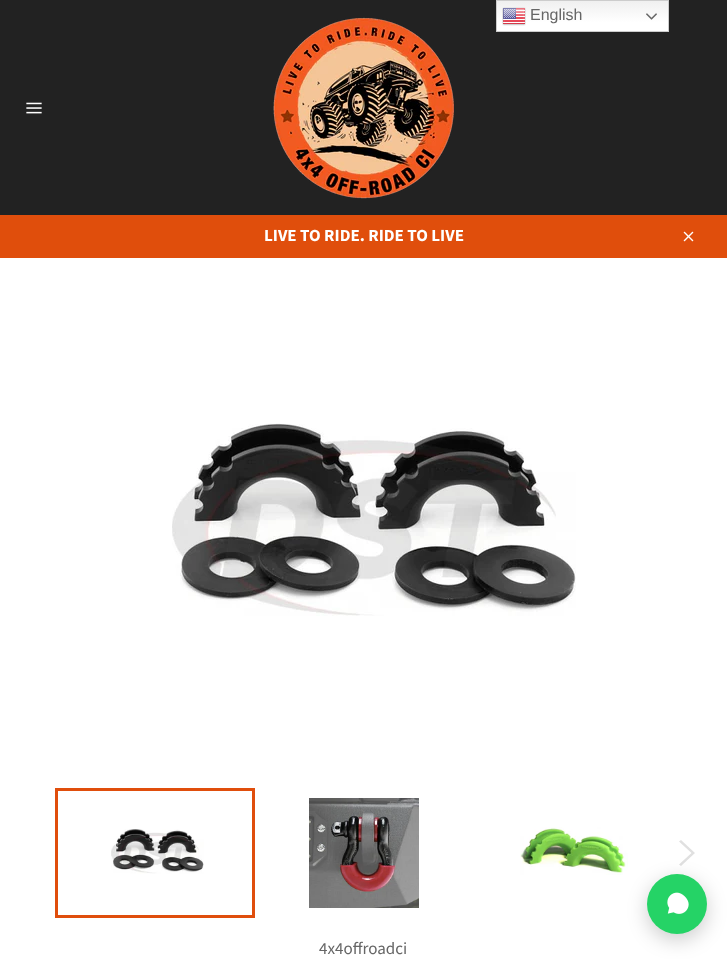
<?xml version="1.0" encoding="UTF-8"?>
<svg xmlns="http://www.w3.org/2000/svg" width="727" height="959">
    <defs>
        <linearGradient id="g1" gradientUnits="userSpaceOnUse" x1="583" y1="0" x2="583" y2="32"><stop offset="0" stop-color="#EFEFEF"/><stop offset="0.7" stop-color="#FFFFFF"/></linearGradient>
        <filter id="blur1" x="-50%" y="-200%" width="200%" height="500%"><feGaussianBlur stdDeviation="10"/></filter>
    </defs>
    <rect width="100%" height="100%" fill="#222222"/>
    <rect x="497" y="1" width="171" height="30" fill="url(#g1)"/>
    <rect x="496.5" y="0.5" width="172" height="31" fill="none" stroke="#CCCCCC"/>
    <image x="502" y="7" width="24" height="19" href="img_01.png"/>
    <text x="530" y="20" font-family="Liberation Sans" font-size="16" fill="#666666">English</text>
    <image x="646" y="13" width="11" height="7" href="img_02.png"/>
    <image x="26" y="102" width="16" height="12" href="img_03.png"/>
    <image x="273" y="17" width="181" height="182" href="img_04.png"/>
    <rect x="0" y="215" width="727" height="43" fill="#E04E0C"/>
    <text x="264" y="241" font-family="Source Sans Pro" font-size="17" font-weight="700" fill="#FFFFFF">LIVE TO RIDE. RIDE TO LIVE</text>
    <image x="683" y="231" width="11" height="11" href="img_05.png"/>
    <rect x="0" y="258" width="727" height="701" fill="#FFFFFF"/>
    <image x="172" y="423" width="404" height="193" href="img_06.png"/>
    <image x="111" y="829" width="93" height="45" href="img_07.png"/>
    <rect x="56.5" y="789.5" width="197" height="127" fill="none" stroke="#E04E0C" stroke-width="3"/>
    <image x="309" y="798" width="110" height="110" href="img_08.png"/>
    <image x="520" y="827" width="108" height="48" href="img_09.png"/>
    <path d="M 679 841.5 L 681 840 L 695 853 L 681 866 L 679 864.5 L 691.5 853 Z" fill="#E0E0E0"/>
    <text x="319" y="954" font-family="Source Sans Pro" font-size="17" fill="#666666">4x4offroadci</text>
    <rect x="647" y="880" width="60" height="60" rx="30" fill="#000000" fill-opacity="0.2" filter="url(#blur1)"/>
    <circle cx="677" cy="904" r="30" fill="#25D366"/>
    <image x="667" y="892" width="22" height="22" href="img_10.png"/>
</svg>
